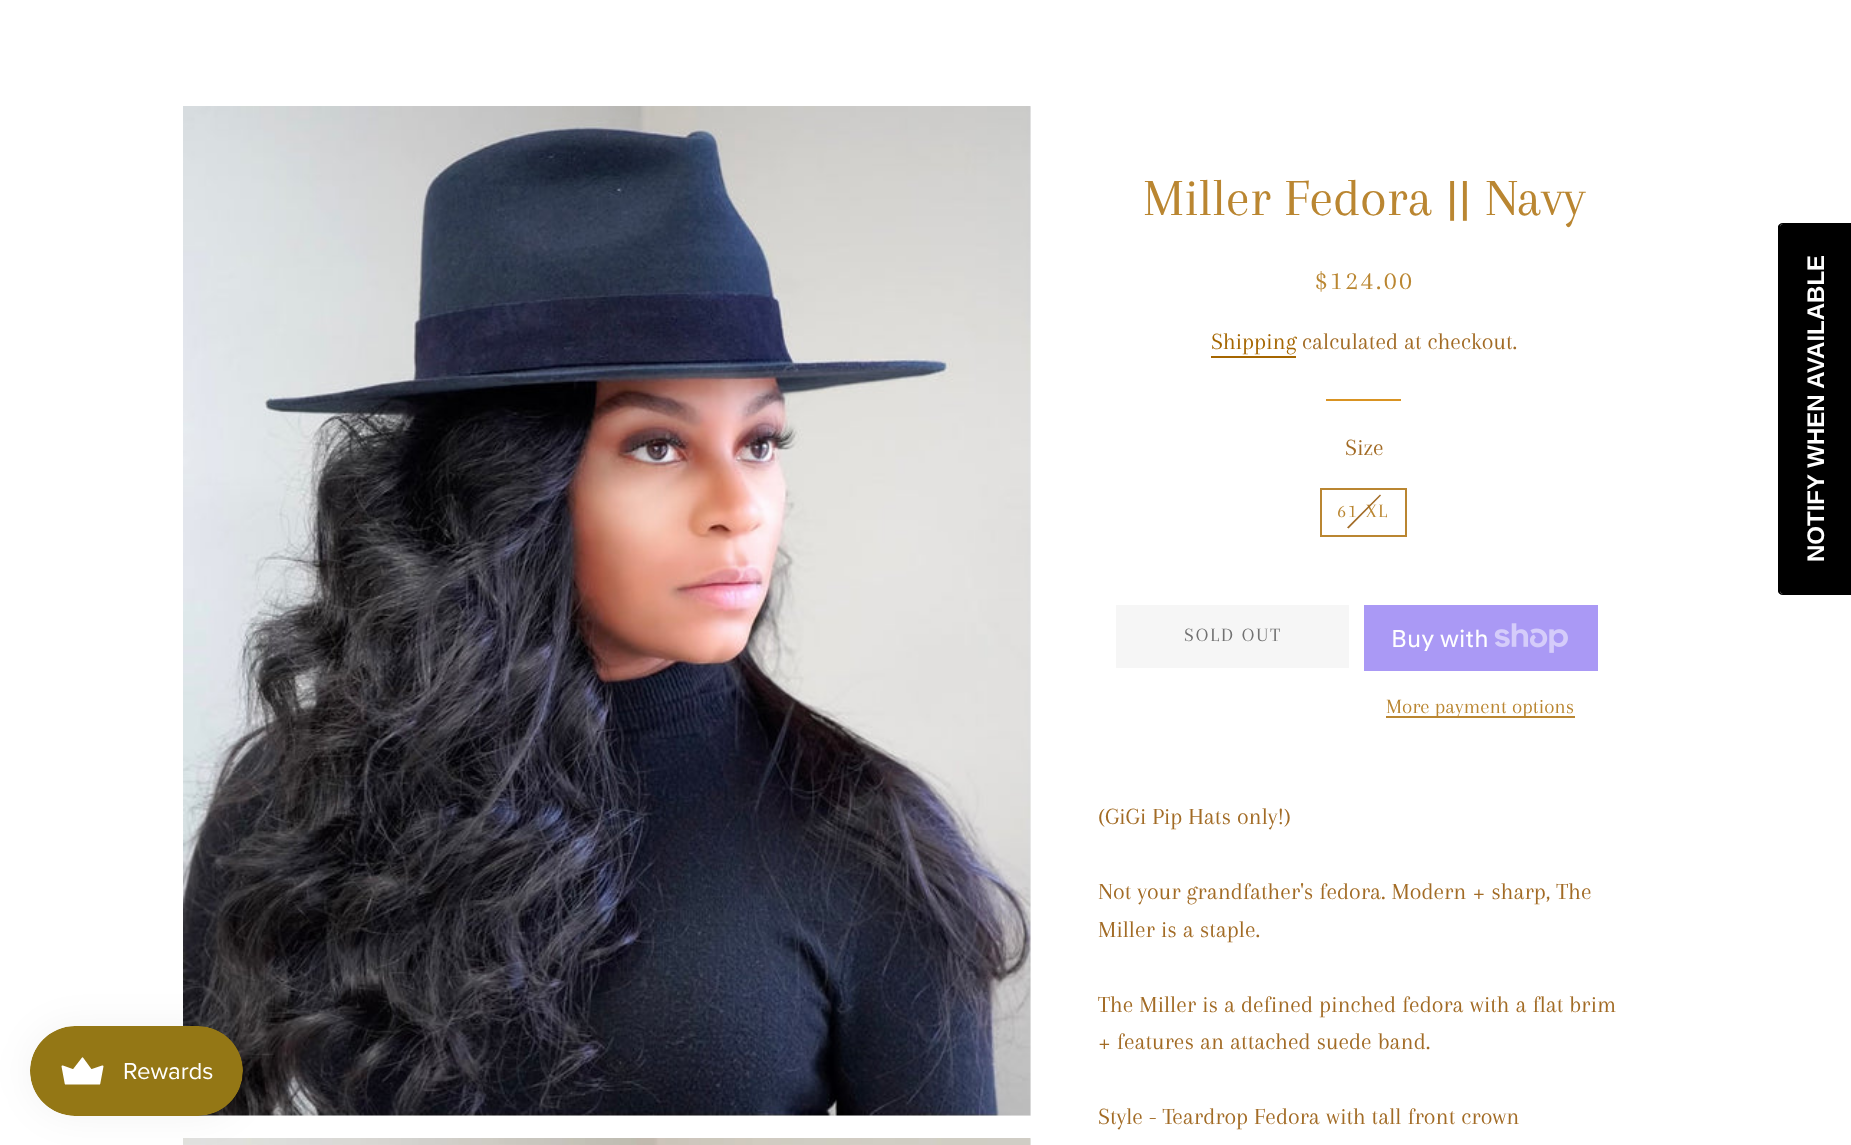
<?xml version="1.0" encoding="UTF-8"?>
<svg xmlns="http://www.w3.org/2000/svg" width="1851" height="1145">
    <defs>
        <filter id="blur1" x="-50%" y="-200%" width="200%" height="500%"><feGaussianBlur stdDeviation="19"/></filter>
    </defs>
    <rect width="100%" height="100%" fill="#FFFFFF"/>
    <rect x="198" y="107" width="833" height="1009" fill="#F6F6F6"/>
    <image x="183" y="106" width="848" height="1010" href="img_01.png"/>
    <rect x="1030" y="1139" width="1" height="6" fill="#F6F6F6"/>
    <image x="183" y="1138" width="848" height="7" href="img_02.png"/>
    <text x="1143" y="215" font-family="Arapey" font-size="54" fill="#BA8631">Miller Fedora || Navy</text>
    <text x="1315" y="289" font-family="Arapey" font-size="27" letter-spacing="2.75" fill="#BA8631">$124.00</text>
    <text x="1211" y="349" font-family="Arapey" font-size="24" fill="#A56600">Shipping</text>
    <rect x="1211" y="356" width="85" height="2" fill="#A56600"/>
    <text x="1302" y="349" font-family="Arapey" font-size="24" fill="#A26B25">calculated at checkout.</text>
    <rect x="1326" y="399" width="75" height="2" fill="#D99322"/>
    <text x="1345" y="455" font-family="Arapey" font-size="24" fill="#A26B25">Size</text>
    <rect x="1321" y="489" width="85" height="47" fill="none" stroke="#BA8631" stroke-width="2"/>
    <text x="1337" y="517" font-family="Arapey" font-size="19.5" letter-spacing="2" fill="#BA8631">61 XL</text>
    <path d="M 1380 494.5 L 1381 495.5 L 1348.5 528.5 L 1347 527.5 Z" fill="#A26B25"/>
    <rect x="1116" y="605" width="233" height="63" fill="#F6F6F6"/>
    <text x="1184" y="641" font-family="Arapey" font-size="19.5" letter-spacing="2" fill="#717171">SOLD OUT</text>
    <rect x="1364" y="605" width="234" height="66" fill="#AA99F5"/>
    <text x="1391" y="647" font-family="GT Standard" font-size="24" fill="#FFFFFF">Buy with</text>
    <image x="1494" y="623" width="74" height="30" href="img_03.png"/>
    <rect x="1386" y="716" width="189" height="2" fill="#BA8631"/>
    <text x="1386" y="713" font-family="Arapey" font-size="21" fill="#BA8631">More payment options</text>
    <text x="1098" y="824" font-family="Arapey" font-size="24" fill="#A26B25">(GiGi Pip Hats only!)</text>
    <text font-family="Arapey" font-size="24" fill="#A26B25">
        <tspan x="1098" y="899">Not your grandfather's fedora. Modern + sharp, The</tspan>
        <tspan x="1098" y="937">Miller is a staple.</tspan>
    </text>
    <text font-family="Arapey" font-size="24" fill="#A26B25">
        <tspan x="1098" y="1012">The Miller is a defined pinched fedora with a flat brim</tspan>
        <tspan x="1098" y="1049">+ features an attached suede band.</tspan>
    </text>
    <text x="1098" y="1124" font-family="Arapey" font-size="24" fill="#A26B25">Style - Teardrop Fedora with tall front crown</text>
    <path d="M 1780 591 V 227 C 1780 225 1781 224 1783 224 H 1851 V 594 H 1783 C 1781 594 1780 592 1780 591 Z" fill="#000000"/>
    <path d="M 1778 591 V 227 C 1778 225 1780 223 1783 223 H 1851 V 595 H 1783 C 1780 595 1778 593 1778 591 Z M 1780 591 V 227 C 1780 225 1781 224 1783 224 H 1851 V 594 H 1783 C 1781 594 1780 592 1780 591 Z" fill="#000000" fill-rule="evenodd"/>
    <text x="1824" y="562" transform="rotate(-90 1824 562)" font-family="Liberation Sans" font-size="24" font-weight="700" fill="#FFFFFF">NOTIFY WHEN AVAILABLE</text>
    <rect x="30" y="1026" width="213" height="90" rx="45" fill="#000000" fill-opacity="0.05" filter="url(#blur1)"/>
    <image x="30" y="1026" width="213" height="90" href="img_04.png"/>
</svg>
